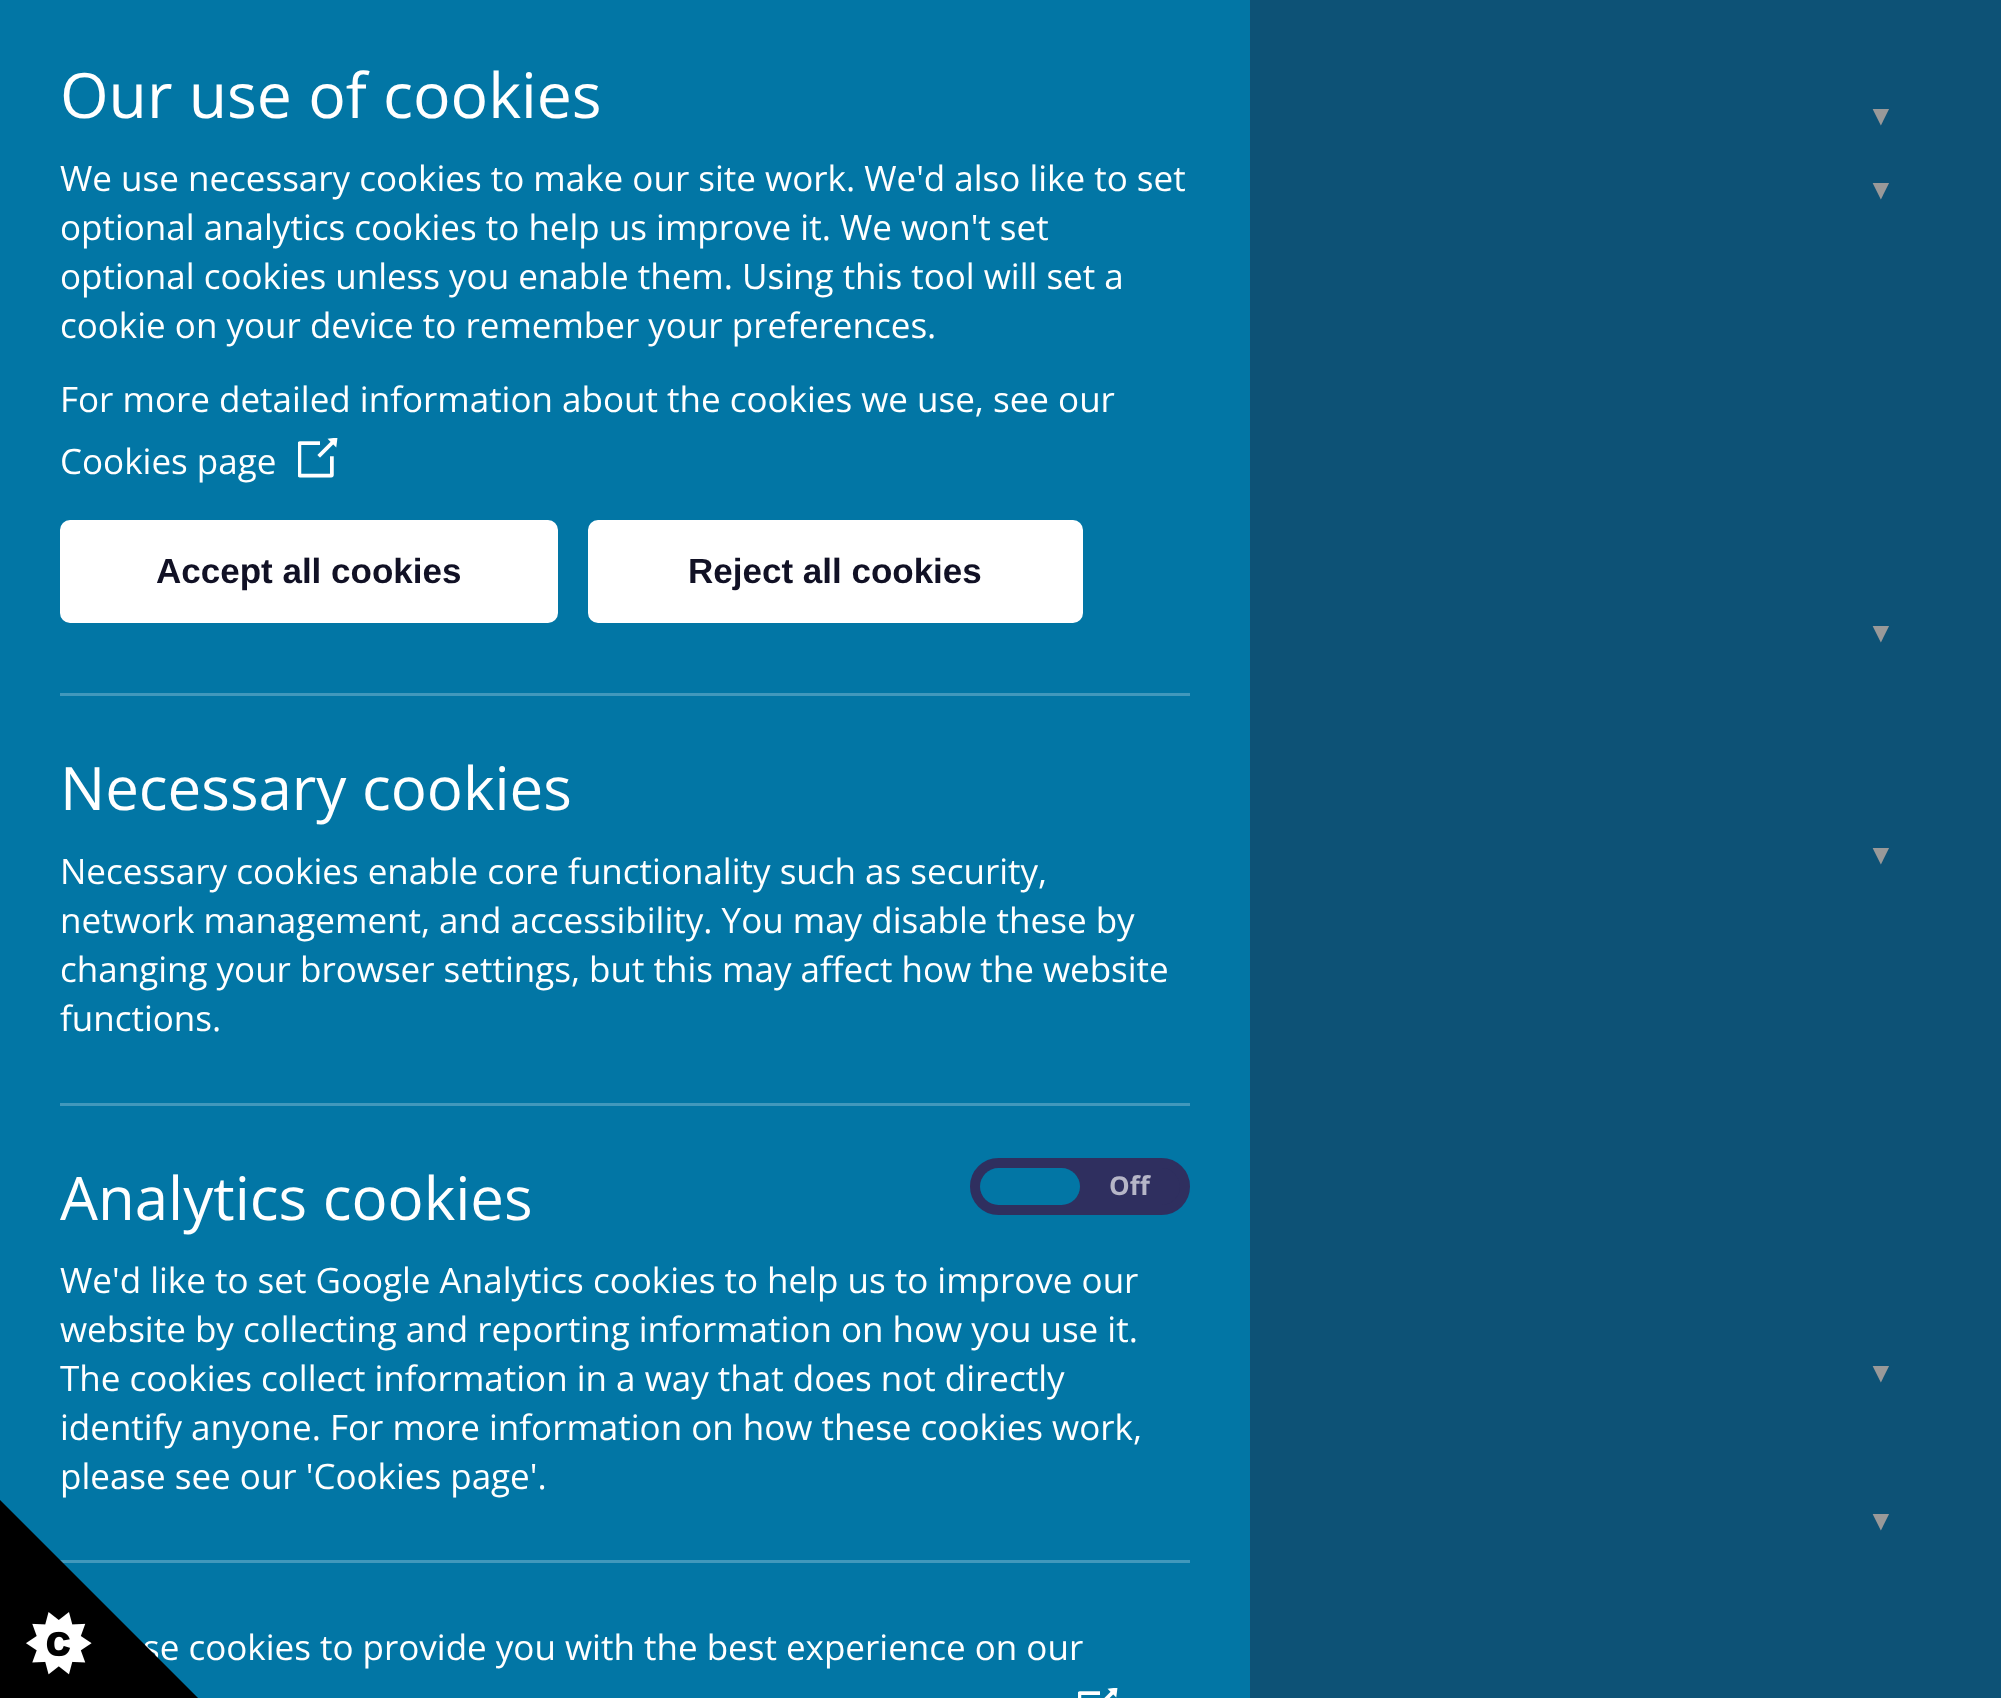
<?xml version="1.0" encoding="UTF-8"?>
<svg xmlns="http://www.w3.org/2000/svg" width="2001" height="1698">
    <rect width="100%" height="100%" fill="#0D5276"/>
    <rect x="0" y="0" width="1250" height="1698" fill="#0276A5"/>
    <text x="60" y="118" font-family="Open Sans" font-size="62.5" fill="#FFFFFF">Our use of cookies</text>
    <text font-family="Open Sans" font-size="35" fill="#FFFFFF">
        <tspan x="60" y="191">We use necessary cookies to make our site work. We'd also like to set</tspan>
        <tspan x="60" y="240">optional analytics cookies to help us improve it. We won't set</tspan>
        <tspan x="60" y="289">optional cookies unless you enable them. Using this tool will set a</tspan>
        <tspan x="60" y="338">cookie on your device to remember your preferences.</tspan>
    </text>
    <text font-family="Open Sans" font-size="35" fill="#FFFFFF">
        <tspan x="60" y="412">For more detailed information about the cookies we use, see our</tspan>
        <tspan x="60" y="474">Cookies page</tspan>
    </text>
    <image x="298" y="438" width="40" height="40" href="img_01.png"/>
    <rect x="62.5" y="522.5" width="493" height="98" rx="7.5" fill="#FFFFFF" stroke="#FFFFFF" stroke-width="5"/>
    <text x="156" y="583" font-family="Liberation Sans" font-size="35" font-weight="700" fill="#111125">Accept all cookies</text>
    <rect x="590.5" y="522.5" width="490" height="98" rx="7.5" fill="#FFFFFF" stroke="#FFFFFF" stroke-width="5"/>
    <text x="688" y="583" font-family="Liberation Sans" font-size="35" font-weight="700" fill="#111125">Reject all cookies</text>
    <rect x="60" y="693" width="1130" height="3" fill="#4198BC"/>
    <text x="60" y="810" font-family="Open Sans" font-size="60" fill="#FFFFFF">Necessary cookies</text>
    <text font-family="Open Sans" font-size="35" fill="#FFFFFF">
        <tspan x="60" y="884">Necessary cookies enable core functionality such as security,</tspan>
        <tspan x="60" y="933">network management, and accessibility. You may disable these by</tspan>
        <tspan x="60" y="982">changing your browser settings, but this may affect how the website</tspan>
        <tspan x="60" y="1031">functions.</tspan>
    </text>
    <rect x="60" y="1103" width="1130" height="3" fill="#4198BC"/>
    <text x="60" y="1220" font-family="Open Sans" font-size="60" fill="#FFFFFF">Analytics cookies</text>
    <rect x="975" y="1163" width="210" height="47" rx="23.5" fill="#2F2F5F" stroke="#2F2F5F" stroke-width="10"/>
    <rect x="980" y="1168" width="100" height="37" rx="18.5" fill="#0276A5"/>
    <text x="1109" y="1195" font-family="Open Sans" font-size="26" font-weight="700" fill="#B6B6C7">Off</text>
    <text font-family="Open Sans" font-size="35" fill="#FFFFFF">
        <tspan x="60" y="1293">We'd like to set Google Analytics cookies to help us to improve our</tspan>
        <tspan x="60" y="1342">website by collecting and reporting information on how you use it.</tspan>
        <tspan x="60" y="1391">The cookies collect information in a way that does not directly</tspan>
        <tspan x="60" y="1440">identify anyone. For more information on how these cookies work,</tspan>
        <tspan x="60" y="1489">please see our 'Cookies page'.</tspan>
    </text>
    <rect x="60" y="1560" width="1130" height="3" fill="#4198BC"/>
    <text x="143" y="1660" font-family="Open Sans" font-size="35" fill="#FFFFFF">se cookies to provide you with the best experience on our</text>
    <image x="1078" y="1688" width="40" height="10" href="img_02.png"/>
    <image x="0" y="1500" width="198" height="198" href="img_03.png"/>
    <text x="1867" y="125" font-family="Liberation Sans" font-size="28" fill="#999999">▼</text>
    <text x="1867" y="199" font-family="Liberation Sans" font-size="28" fill="#999999">▼</text>
    <text x="1867" y="642" font-family="Liberation Sans" font-size="28" fill="#999999">▼</text>
    <text x="1867" y="864" font-family="Liberation Sans" font-size="28" fill="#999999">▼</text>
    <text x="1867" y="1382" font-family="Liberation Sans" font-size="28" fill="#999999">▼</text>
    <text x="1867" y="1530" font-family="Liberation Sans" font-size="28" fill="#999999">▼</text>
</svg>
